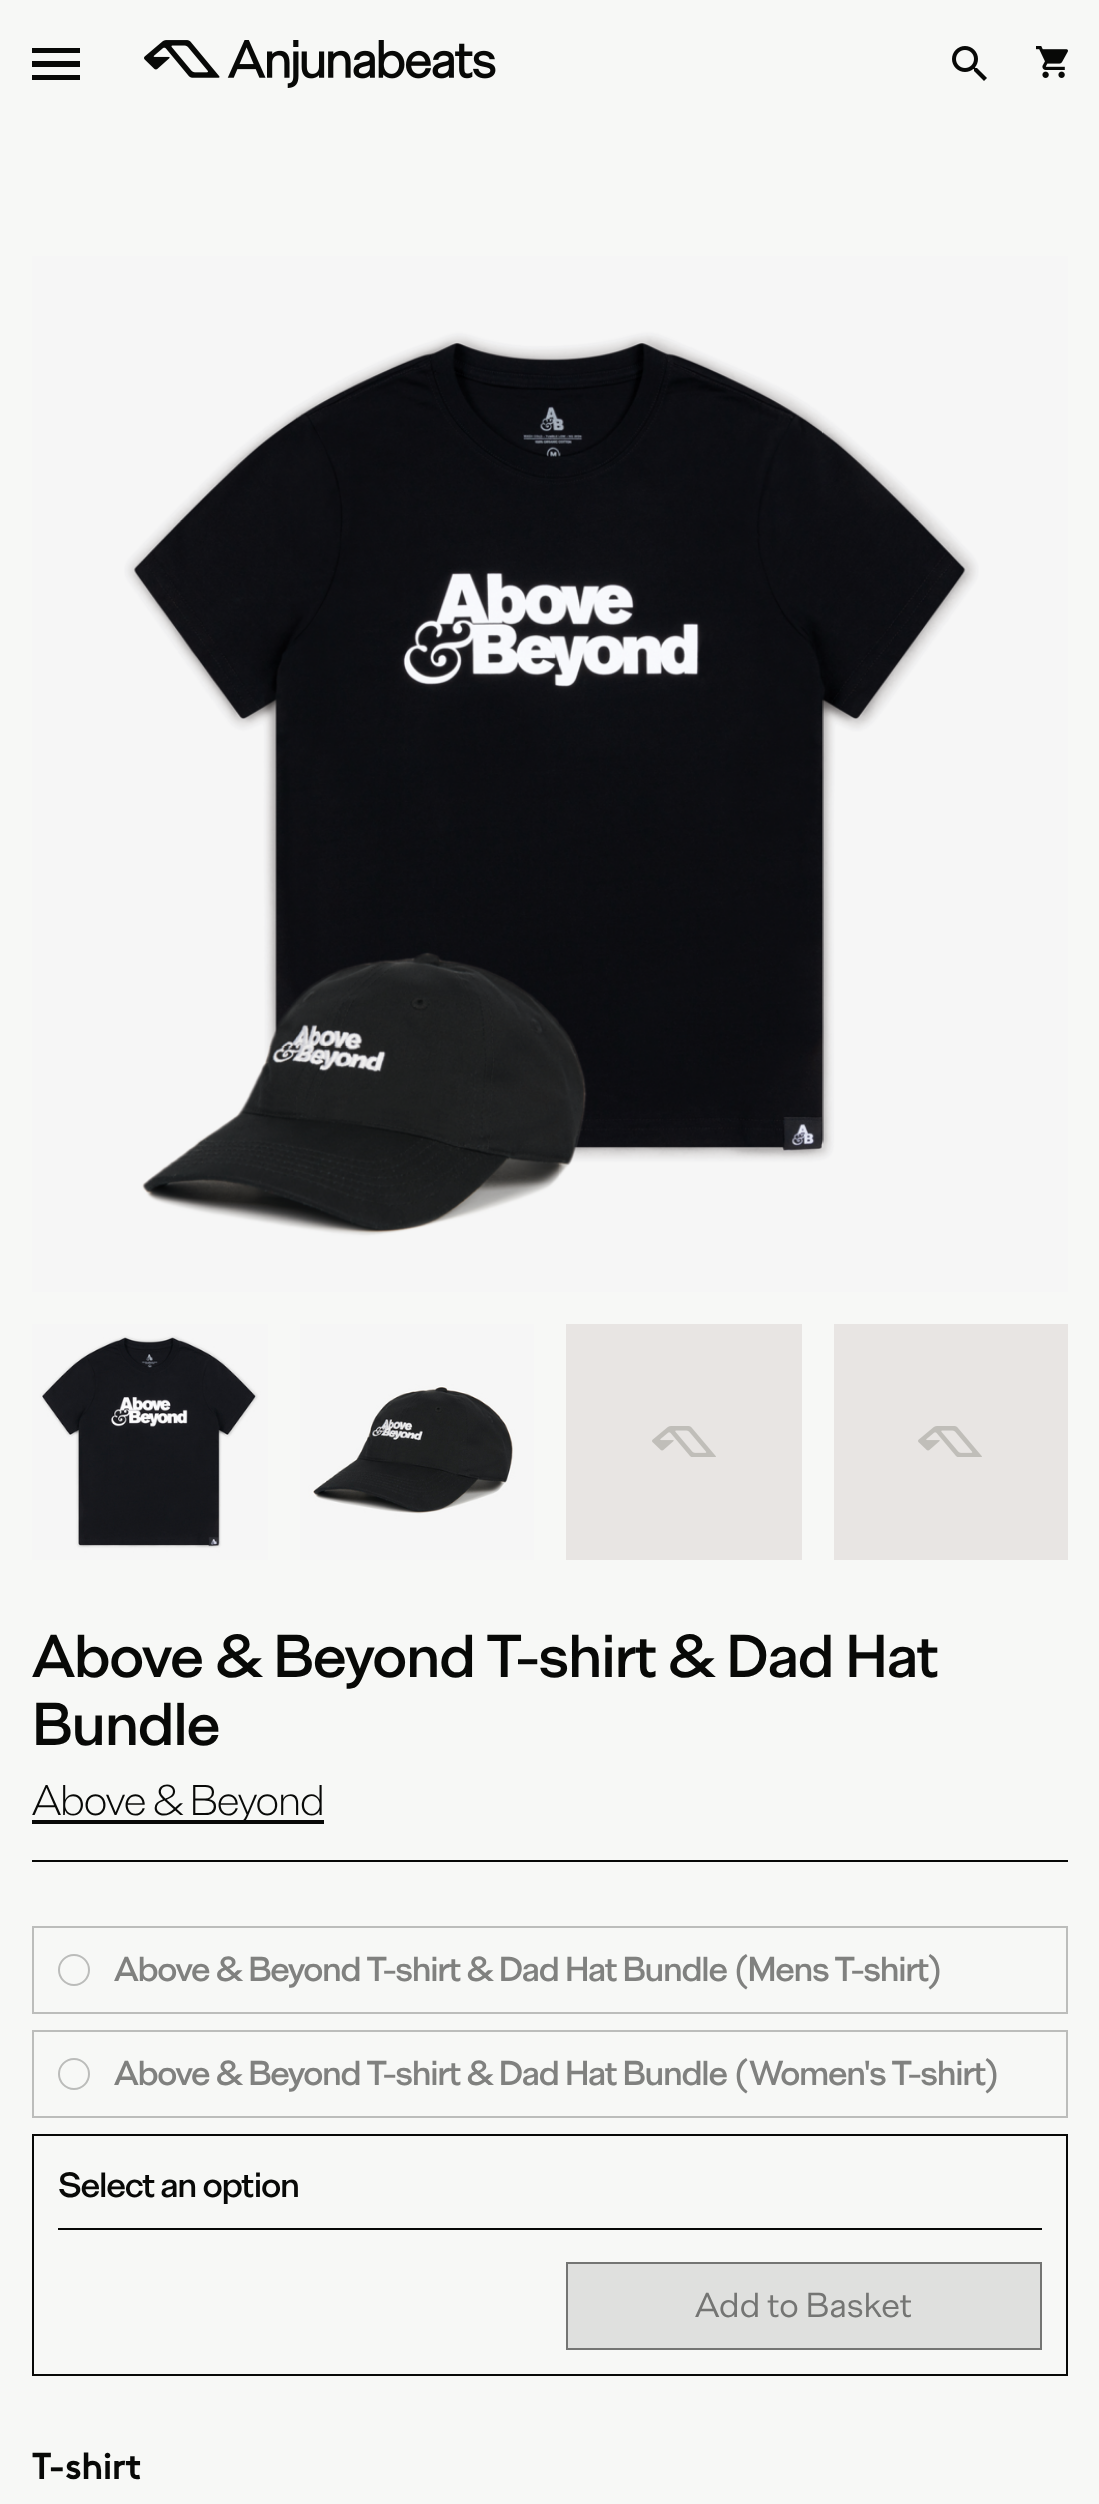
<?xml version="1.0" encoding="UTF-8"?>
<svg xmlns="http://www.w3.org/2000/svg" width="1099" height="2504">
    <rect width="100%" height="100%" fill="#F7F8F6"/>
    <path d="M 32 80 H 80 V 75 H 32 Z M 32 67 H 80 V 61 H 32 Z M 32 48 V 53 H 80 V 48 Z" fill="#080907"/>
    <image x="144" y="40" width="352" height="48" href="img_01.png"/>
    <image x="952" y="46" width="35" height="35" href="img_02.png"/>
    <image x="1036" y="46" width="32" height="32" href="img_03.png"/>
    <image x="32" y="256" width="1036" height="1036" href="img_04.png"/>
    <image x="32" y="1324" width="236" height="236" href="img_05.png"/>
    <image x="300" y="1324" width="234" height="236" href="img_06.png"/>
    <rect x="566" y="1324" width="236" height="236" fill="#E8E5E3"/>
    <image x="652" y="1426" width="64" height="31" href="img_07.png"/>
    <rect x="834" y="1324" width="234" height="236" fill="#E8E5E3"/>
    <image x="918" y="1426" width="64" height="31" href="img_07.png"/>
    <text font-family="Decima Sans" font-size="62" font-weight="500" letter-spacing="-1.28" fill="#080907">
        <tspan x="32" y="1677">Above &amp; Beyond T-shirt &amp; Dad Hat</tspan>
        <tspan x="32" y="1745">Bundle</tspan>
    </text>
    <rect x="32" y="1860" width="1036" height="2" fill="#080907"/>
    <rect x="32" y="1820" width="292" height="4" fill="#080907"/>
    <text x="32" y="1815" font-family="Decima Sans" font-size="44" font-weight="300" letter-spacing="-1.28" fill="#080907">Above &amp; Beyond</text>
    <rect x="33" y="1927" width="1034" height="86" fill="none" stroke="#BCBDBB" stroke-width="2"/>
    <circle cx="74" cy="1970" r="15" fill="none" stroke="#BBBCBA" stroke-width="2"/>
    <text x="114" y="1981" font-family="Decima Sans" font-size="35.6" font-weight="500" letter-spacing="-1.28" fill="#80817F">Above &amp; Beyond T-shirt &amp; Dad Hat Bundle (Mens T-shirt)</text>
    <rect x="33" y="2031" width="1034" height="86" fill="none" stroke="#BCBDBB" stroke-width="2"/>
    <circle cx="74" cy="2074" r="15" fill="none" stroke="#BBBCBA" stroke-width="2"/>
    <text x="114" y="2085" font-family="Decima Sans" font-size="35.6" font-weight="500" letter-spacing="-1.28" fill="#80817F">Above &amp; Beyond T-shirt &amp; Dad Hat Bundle (Women's T-shirt)</text>
    <rect x="33" y="2135" width="1034" height="240" fill="none" stroke="#080907" stroke-width="2"/>
    <rect x="58" y="2228" width="984" height="2" fill="#080907"/>
    <text x="58" y="2197" font-family="Decima Sans" font-size="36" font-weight="500" letter-spacing="-1.28" fill="#080907">Select an option</text>
    <rect x="567" y="2263" width="474" height="86" fill="#DFE0DE" stroke="#747573" stroke-width="2"/>
    <text x="695" y="2317" font-family="Decima Sans" font-size="35.6" fill="#747573">Add to Basket</text>
    <text x="32" y="2479" font-family="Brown" font-size="36" font-weight="700" letter-spacing="-0.5" fill="#080907">T-shirt</text>
</svg>
